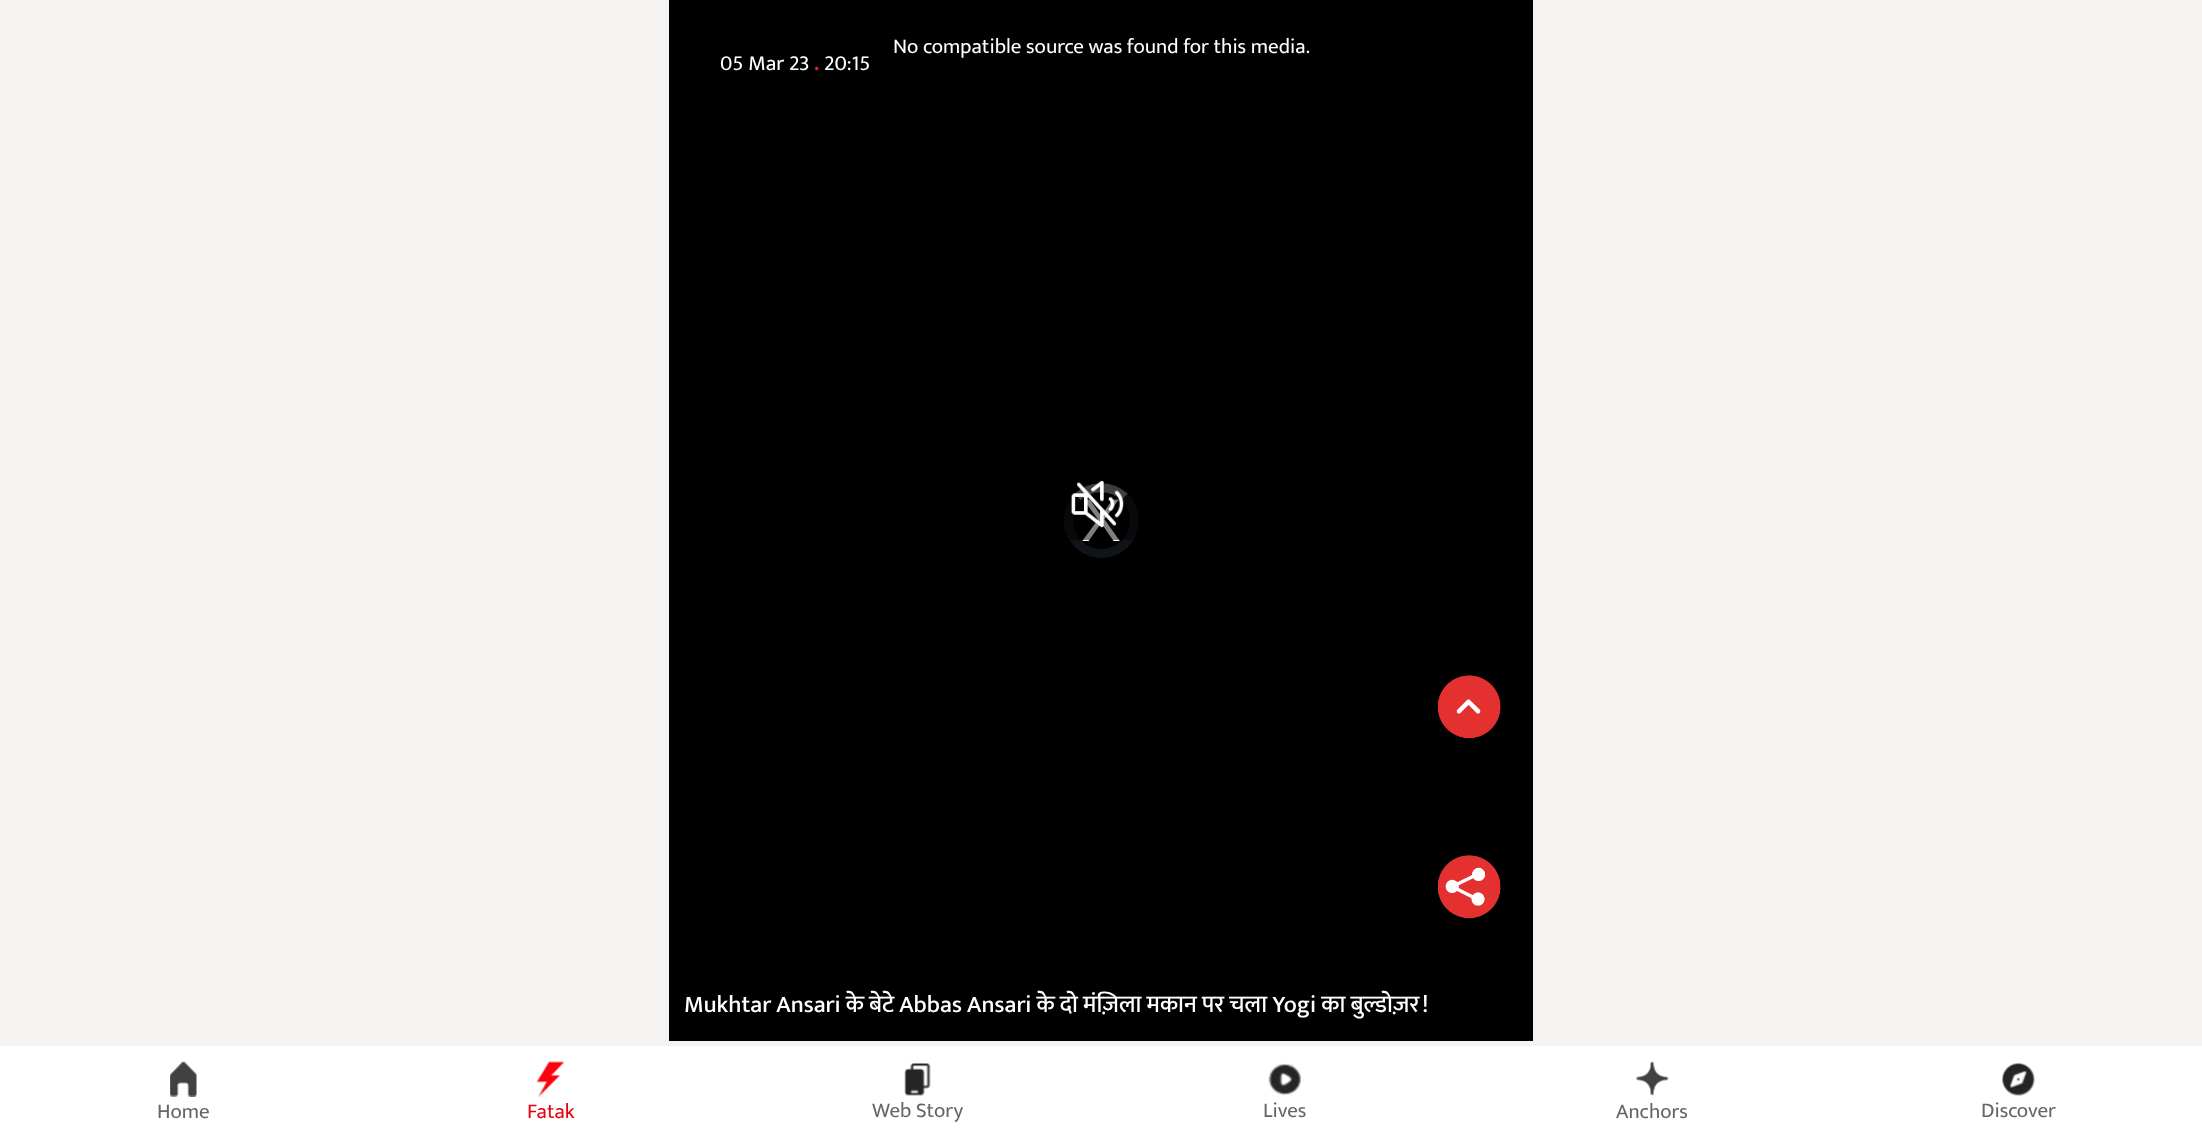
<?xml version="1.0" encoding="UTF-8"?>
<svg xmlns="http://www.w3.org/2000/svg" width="2202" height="1131">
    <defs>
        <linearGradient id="g1" gradientUnits="userSpaceOnUse" x1="1101" y1="0" x2="1101" y2="1041"><stop offset="0" stop-color="#000000" stop-opacity="0.8"/><stop offset="1" stop-color="#000000" stop-opacity="0"/></linearGradient>
    </defs>
    <rect width="100%" height="100%" fill="#F5F2F2"/>
    <rect x="669" y="0" width="864" height="1041" fill="#000000"/>
    <text x="720" y="70" font-family="Mukta" font-size="21.5" fill="#FFFFFF">05 Mar 23</text>
    <text x="814" y="70" font-family="Mukta" font-size="21.5" font-weight="700" fill="#EC2126">.</text>
    <text x="824" y="70" font-family="Mukta" font-size="21.5" fill="#FFFFFF">20:15</text>
    <circle cx="1101.5" cy="520.5" r="33" fill="none" stroke="#1A1E26" stroke-width="9"/>
    <path d="M 1077.5 497 C 1090.5 484.5 1111.5 484.5 1124.5 497 M 1077.5 497 C 1090.5 484.5 1111.5 484.5 1124.5 497" fill="none" stroke="#D9D9D9" stroke-width="9"/>
    <rect x="1064" y="483" width="75" height="75" fill="url(#g1)"/>
    <text x="893" y="53" font-family="Mukta" font-size="21" fill="#FFFFFF">No compatible source was found for this media.</text>
    <text x="1081" y="541" font-family="Liberation Sans" font-size="60" fill="#FFFFFF">X</text>
    <rect x="1032" y="468" width="129" height="72" rx="15" fill="#000000" fill-opacity="0.5"/>
    <image x="1071" y="480" width="53" height="48" href="img_01.png"/>
    <image x="1438" y="675" width="63" height="64" href="img_02.png"/>
    <image x="1438" y="855" width="63" height="64" href="img_03.png"/>
    <text x="684" y="1012" word-spacing="-0.4" font-family="Mukta" font-size="24" font-weight="500" fill="#FFFFFF">Mukhtar Ansari के बेटे Abbas Ansari के दो मंज़िला मकान पर चला Yogi का बुल्डोज़र!</text>
    <rect x="0" y="1046" width="2202" height="85" fill="#FFFFFF"/>
    <image x="170" y="1061" width="27" height="36" href="img_04.png"/>
    <text x="157" y="1118" font-family="Mukta" font-size="21" fill="#676666">Home</text>
    <image x="536" y="1061" width="29" height="36" href="img_05.png"/>
    <text x="527" y="1118" font-family="Mukta" font-size="21" fill="#E5030E">Fatak</text>
    <image x="904" y="1063" width="27" height="33" href="img_06.png"/>
    <text x="872" y="1117" font-family="Mukta" font-size="21" fill="#676666">Web Story</text>
    <image x="1268" y="1063" width="33" height="33" href="img_07.png"/>
    <text x="1263" y="1117" font-family="Mukta" font-size="21" fill="#676666">Lives</text>
    <image x="1636" y="1061" width="33" height="35" href="img_08.png"/>
    <text x="1616" y="1118" font-family="Mukta" font-size="21" fill="#676666">Anchors</text>
    <image x="2002" y="1063" width="33" height="33" href="img_09.png"/>
    <text x="1981" y="1117" font-family="Mukta" font-size="21" fill="#676666">Discover</text>
</svg>
